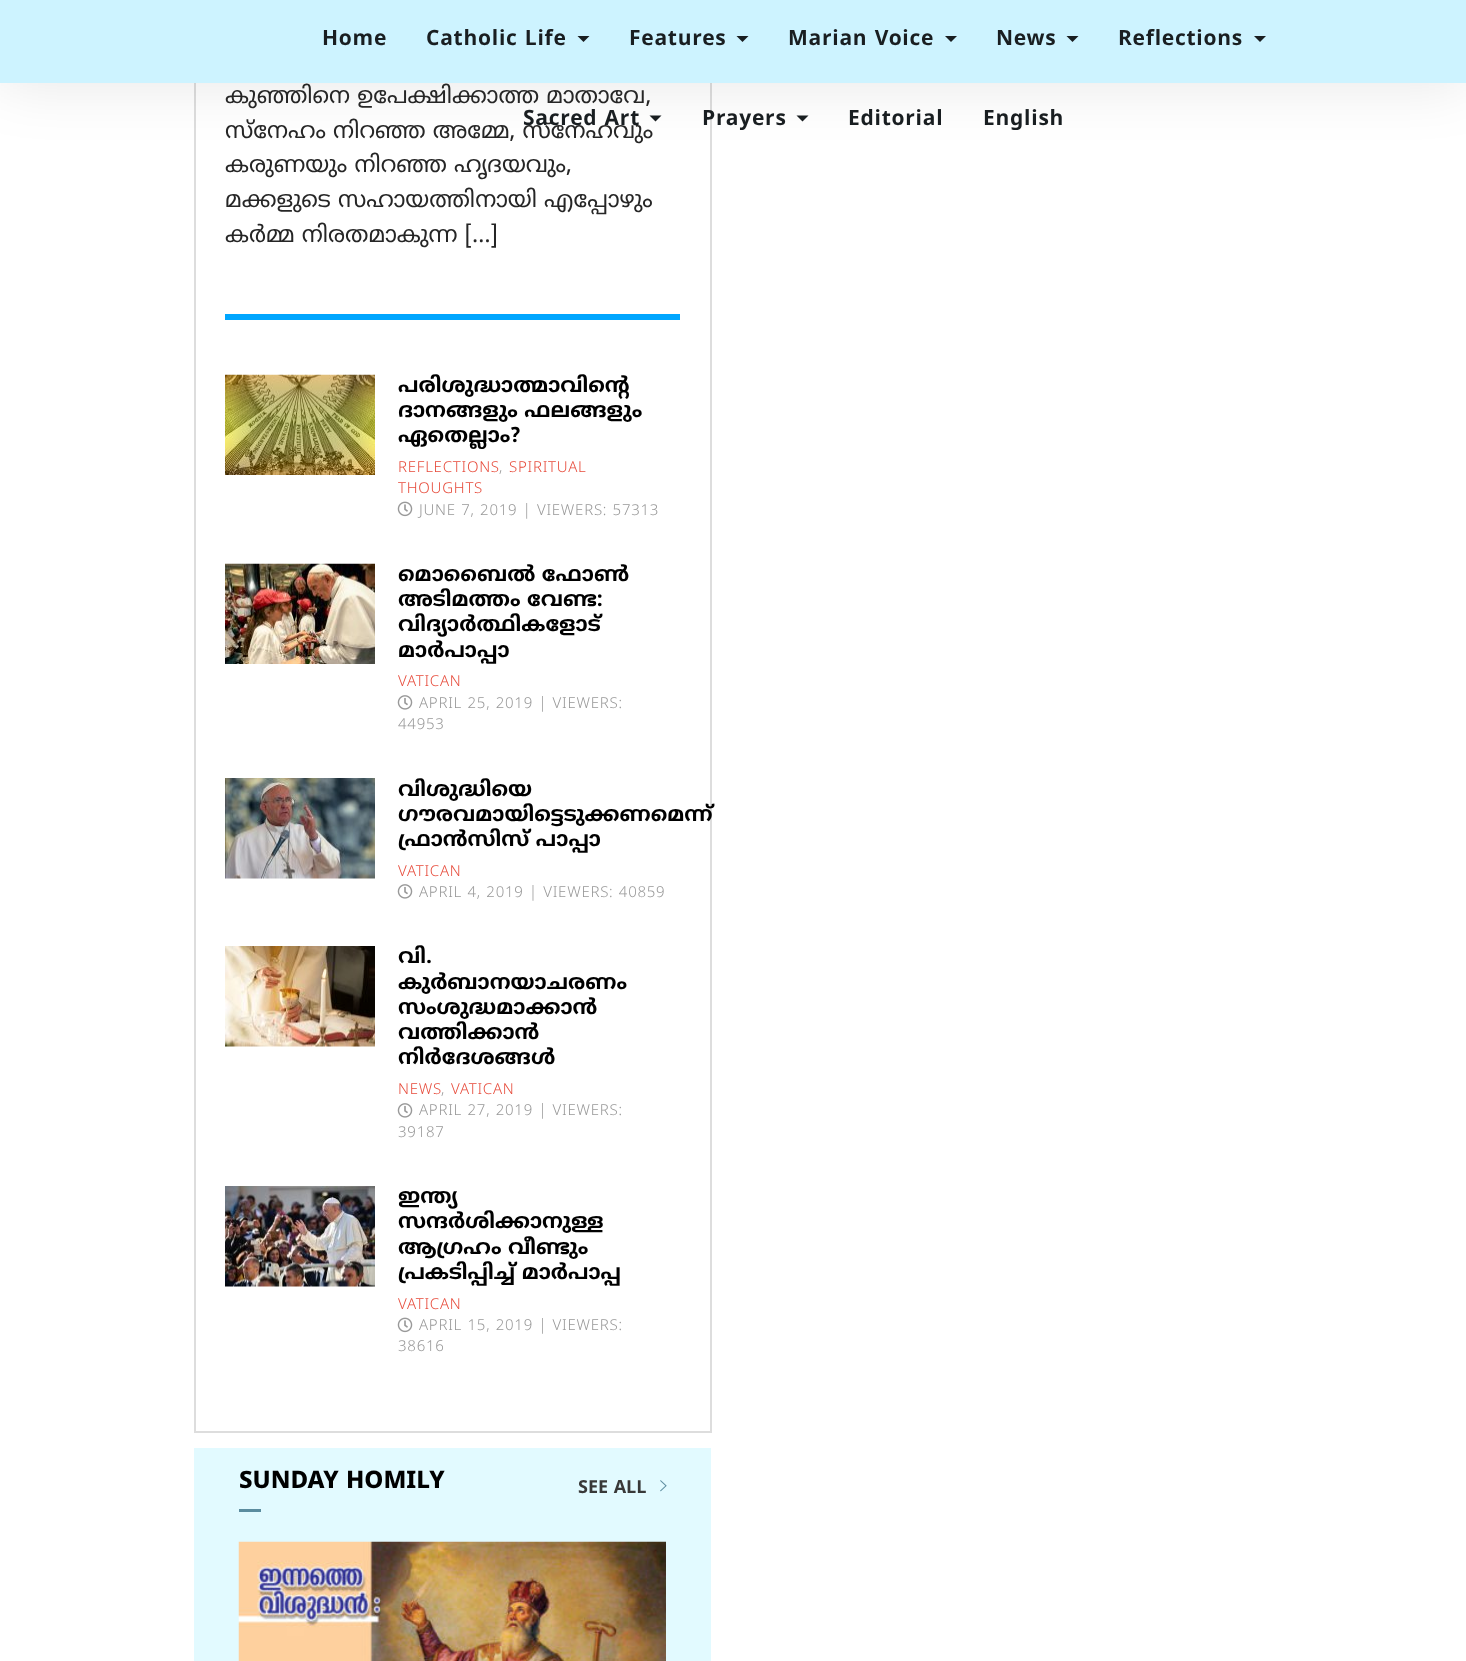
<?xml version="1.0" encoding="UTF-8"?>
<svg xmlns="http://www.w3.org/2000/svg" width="1466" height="1661">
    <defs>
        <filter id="blur1" x="-50%" y="-200%" width="200%" height="500%"><feGaussianBlur stdDeviation="30"/></filter>
    </defs>
    <rect width="100%" height="100%" fill="#FFFFFF"/>
    <rect x="710" y="83" width="2" height="1350" fill="#DDDDDD"/>
    <rect x="194" y="1431" width="517" height="2" fill="#DDDDDD"/>
    <rect x="194" y="83" width="2" height="1350" fill="#DDDDDD"/>
    <rect x="0" y="0" width="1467" height="83" fill="#000000" fill-opacity="0.1" filter="url(#blur1)"/>
    <rect x="0" y="0" width="1466" height="83" fill="#CDF3FF"/>
    <text x="322" y="45" font-family="Noto Sans Malayalam" font-size="21" font-weight="700" letter-spacing="0.75" fill="#191E21">Home</text>
    <text x="426" y="45" font-family="Noto Sans Malayalam" font-size="21" font-weight="700" letter-spacing="0.75" fill="#191E21">Catholic Life</text>
    <path d="M 577.5 36 H 589.5 L 583.5 42 Z" fill="#191E21"/>
    <text x="629" y="45" font-family="Noto Sans Malayalam" font-size="21" font-weight="700" letter-spacing="0.75" fill="#191E21">Features</text>
    <path d="M 736.5 36 H 748.5 L 742.5 42 Z" fill="#191E21"/>
    <text x="788" y="45" font-family="Noto Sans Malayalam" font-size="21" font-weight="700" letter-spacing="0.75" fill="#191E21">Marian Voice</text>
    <path d="M 945 36 H 957 L 951 42 Z" fill="#191E21"/>
    <text x="996" y="45" font-family="Noto Sans Malayalam" font-size="21" font-weight="700" letter-spacing="0.75" fill="#191E21">News</text>
    <path d="M 1066.5 36 H 1078.5 L 1072.5 42 Z" fill="#191E21"/>
    <text x="1118" y="45" font-family="Noto Sans Malayalam" font-size="21" font-weight="700" letter-spacing="0.75" fill="#191E21">Reflections</text>
    <path d="M 1254 36 H 1266 L 1260 42 Z" fill="#191E21"/>
    <text x="225" y="138" font-family="Noto Sans Malayalam" font-size="23.1" fill="#262626">സ്നേഹം നിറഞ്ഞ അമ്മേ, സ്നേഹവും</text>
    <text x="523" y="125" font-family="Noto Sans Malayalam" font-size="21" font-weight="700" letter-spacing="0.75" fill="#191E21">Sacred Art</text>
    <path d="M 649.5 115.5 H 661.5 L 655.5 121.5 Z" fill="#191E21"/>
    <text x="702" y="125" font-family="Noto Sans Malayalam" font-size="21" font-weight="700" letter-spacing="0.75" fill="#191E21">Prayers</text>
    <path d="M 796.5 115.5 H 808.5 L 802.5 121.5 Z" fill="#191E21"/>
    <text x="848" y="125" font-family="Noto Sans Malayalam" font-size="21" font-weight="700" letter-spacing="0.75" fill="#191E21">Editorial</text>
    <text x="983" y="125" font-family="Noto Sans Malayalam" font-size="21" font-weight="700" letter-spacing="0.75" fill="#191E21">English</text>
    <text x="225" y="103" font-family="Noto Sans Malayalam" font-size="23.1" fill="#262626">കുഞ്ഞിനെ ഉപേക്ഷിക്കാത്ത മാതാവേ,</text>
    <text font-family="Noto Sans Malayalam" font-size="23.1" fill="#262626">
        <tspan x="225" y="172">കരുണയും നിറഞ്ഞ ഹൃദയവും,</tspan>
        <tspan x="225" y="207">മക്കളുടെ സഹായത്തിനായി എപ്പോഴും</tspan>
        <tspan x="225" y="242">കർമ്മ നിരതമാകുന്ന […]</tspan>
    </text>
    <rect x="225" y="314" width="455" height="6" fill="#00A6FF"/>
    <image x="225" y="374" width="150" height="101" href="img_01.png"/>
    <text font-family="Noto Sans Malayalam" font-size="21" font-weight="700" fill="#000000">
        <tspan x="398" y="392">പരിശുദ്ധാത്മാവിന്റെ</tspan>
        <tspan x="398" y="417">ദാനങ്ങളും ഫലങ്ങളും</tspan>
        <tspan x="398" y="442">ഏതെല്ലാം?</tspan>
    </text>
    <text x="398" y="472" font-family="Noto Sans Malayalam" font-size="15" font-weight="300" letter-spacing="0.75" fill="#E74C3C">REFLECTIONS</text>
    <text x="499" y="472" font-family="Noto Sans Malayalam" font-size="15" font-weight="300" letter-spacing="0.75" fill="#999999">,</text>
    <text x="509" y="472" font-family="Noto Sans Malayalam" font-size="15" font-weight="300" letter-spacing="0.75" fill="#E74C3C">SPIRITUAL</text>
    <text x="398" y="493" font-family="Noto Sans Malayalam" font-size="15" font-weight="300" letter-spacing="0.75" fill="#E74C3C">THOUGHTS</text>
    <image x="397" y="501" width="16" height="16" href="img_02.png"/>
    <text x="419" y="515" font-family="Noto Sans Malayalam" font-size="15" font-weight="300" letter-spacing="0.75" fill="#999999">JUNE 7, 2019 | VIEWERS: 57313</text>
    <image x="225" y="563" width="150" height="101" href="img_03.png"/>
    <text font-family="Noto Sans Malayalam" font-size="21" font-weight="700" fill="#000000">
        <tspan x="398" y="581">മൊബൈല്‍ ഫോണ്‍</tspan>
        <tspan x="398" y="606">അടിമത്തം വേണ്ട:</tspan>
        <tspan x="398" y="631">വിദ്യാര്‍ത്ഥികളോട്</tspan>
        <tspan x="398" y="657">മാര്‍പാപ്പാ</tspan>
    </text>
    <text x="398" y="686" font-family="Noto Sans Malayalam" font-size="15" font-weight="300" letter-spacing="0.75" fill="#E74C3C">VATICAN</text>
    <image x="397" y="695" width="16" height="15" href="img_04.png"/>
    <text x="419" y="708" font-family="Noto Sans Malayalam" font-size="15" font-weight="300" letter-spacing="0.75" fill="#999999">APRIL 25, 2019 | VIEWERS:</text>
    <text x="398" y="729" font-family="Noto Sans Malayalam" font-size="15" font-weight="300" letter-spacing="0.75" fill="#999999">44953</text>
    <image x="225" y="778" width="150" height="101" href="img_05.png"/>
    <text font-family="Noto Sans Malayalam" font-size="21" font-weight="700" fill="#000000">
        <tspan x="398" y="796">വിശുദ്ധിയെ</tspan>
        <tspan x="398" y="821">ഗൗരവമായിട്ടെടുക്കണമെന്ന്</tspan>
        <tspan x="398" y="846">ഫ്രാന്‍സിസ് പാപ്പാ</tspan>
    </text>
    <text x="398" y="876" font-family="Noto Sans Malayalam" font-size="15" font-weight="300" letter-spacing="0.75" fill="#E74C3C">VATICAN</text>
    <image x="397" y="884" width="16" height="15" href="img_04.png"/>
    <text x="419" y="897" font-family="Noto Sans Malayalam" font-size="15" font-weight="300" letter-spacing="0.75" fill="#999999">APRIL 4, 2019 | VIEWERS: 40859</text>
    <image x="225" y="946" width="150" height="101" href="img_06.png"/>
    <text font-family="Noto Sans Malayalam" font-size="21" font-weight="700" fill="#000000">
        <tspan x="398" y="963">വി.</tspan>
        <tspan x="398" y="989">കുര്‍ബാനയാചരണം</tspan>
        <tspan x="398" y="1014">സംശുദ്ധമാക്കാന്‍</tspan>
        <tspan x="398" y="1039">വത്തിക്കാന്‍</tspan>
        <tspan x="398" y="1064">നിര്‍ദേശങ്ങള്‍</tspan>
    </text>
    <text x="398" y="1094" font-family="Noto Sans Malayalam" font-size="15" font-weight="300" letter-spacing="0.75" fill="#E74C3C">NEWS</text>
    <text x="441" y="1094" font-family="Noto Sans Malayalam" font-size="15" font-weight="300" letter-spacing="0.75" fill="#999999">,</text>
    <text x="451" y="1094" font-family="Noto Sans Malayalam" font-size="15" font-weight="300" letter-spacing="0.75" fill="#E74C3C">VATICAN</text>
    <image x="397" y="1103" width="16" height="15" href="img_04.png"/>
    <text x="419" y="1115" font-family="Noto Sans Malayalam" font-size="15" font-weight="300" letter-spacing="0.75" fill="#999999">APRIL 27, 2019 | VIEWERS:</text>
    <text x="398" y="1137" font-family="Noto Sans Malayalam" font-size="15" font-weight="300" letter-spacing="0.75" fill="#999999">39187</text>
    <image x="225" y="1186" width="150" height="101" href="img_07.png"/>
    <text font-family="Noto Sans Malayalam" font-size="21" font-weight="700" fill="#000000">
        <tspan x="398" y="1203">ഇന്ത്യ</tspan>
        <tspan x="398" y="1228">സന്ദര്‍ശിക്കാനുള്ള</tspan>
        <tspan x="398" y="1254">ആഗ്രഹം വീണ്ടും</tspan>
        <tspan x="398" y="1279">പ്രകടിപ്പിച്ച് മാര്‍പാപ്പ</tspan>
    </text>
    <text x="398" y="1309" font-family="Noto Sans Malayalam" font-size="15" font-weight="300" letter-spacing="0.75" fill="#E74C3C">VATICAN</text>
    <image x="397" y="1317" width="16" height="16" href="img_02.png"/>
    <text x="419" y="1330" font-family="Noto Sans Malayalam" font-size="15" font-weight="300" letter-spacing="0.75" fill="#999999">APRIL 15, 2019 | VIEWERS:</text>
    <text x="398" y="1351" font-family="Noto Sans Malayalam" font-size="15" font-weight="300" letter-spacing="0.75" fill="#999999">38616</text>
    <rect x="194" y="1448" width="517" height="213" fill="#E2FAFF"/>
    <text x="239" y="1488" font-family="Noto Sans Malayalam" font-size="24" font-weight="800" fill="#000000">SUNDAY HOMILY</text>
    <text x="578" y="1493" font-family="Noto Sans Malayalam" font-size="18" font-weight="700" fill="#383838">SEE ALL</text>
    <image x="660" y="1480" width="7" height="12" href="img_08.png"/>
    <rect x="239" y="1509" width="22" height="3" fill="#5B8C9F"/>
    <image x="238" y="1541" width="428" height="120" href="img_09.png"/>
</svg>
